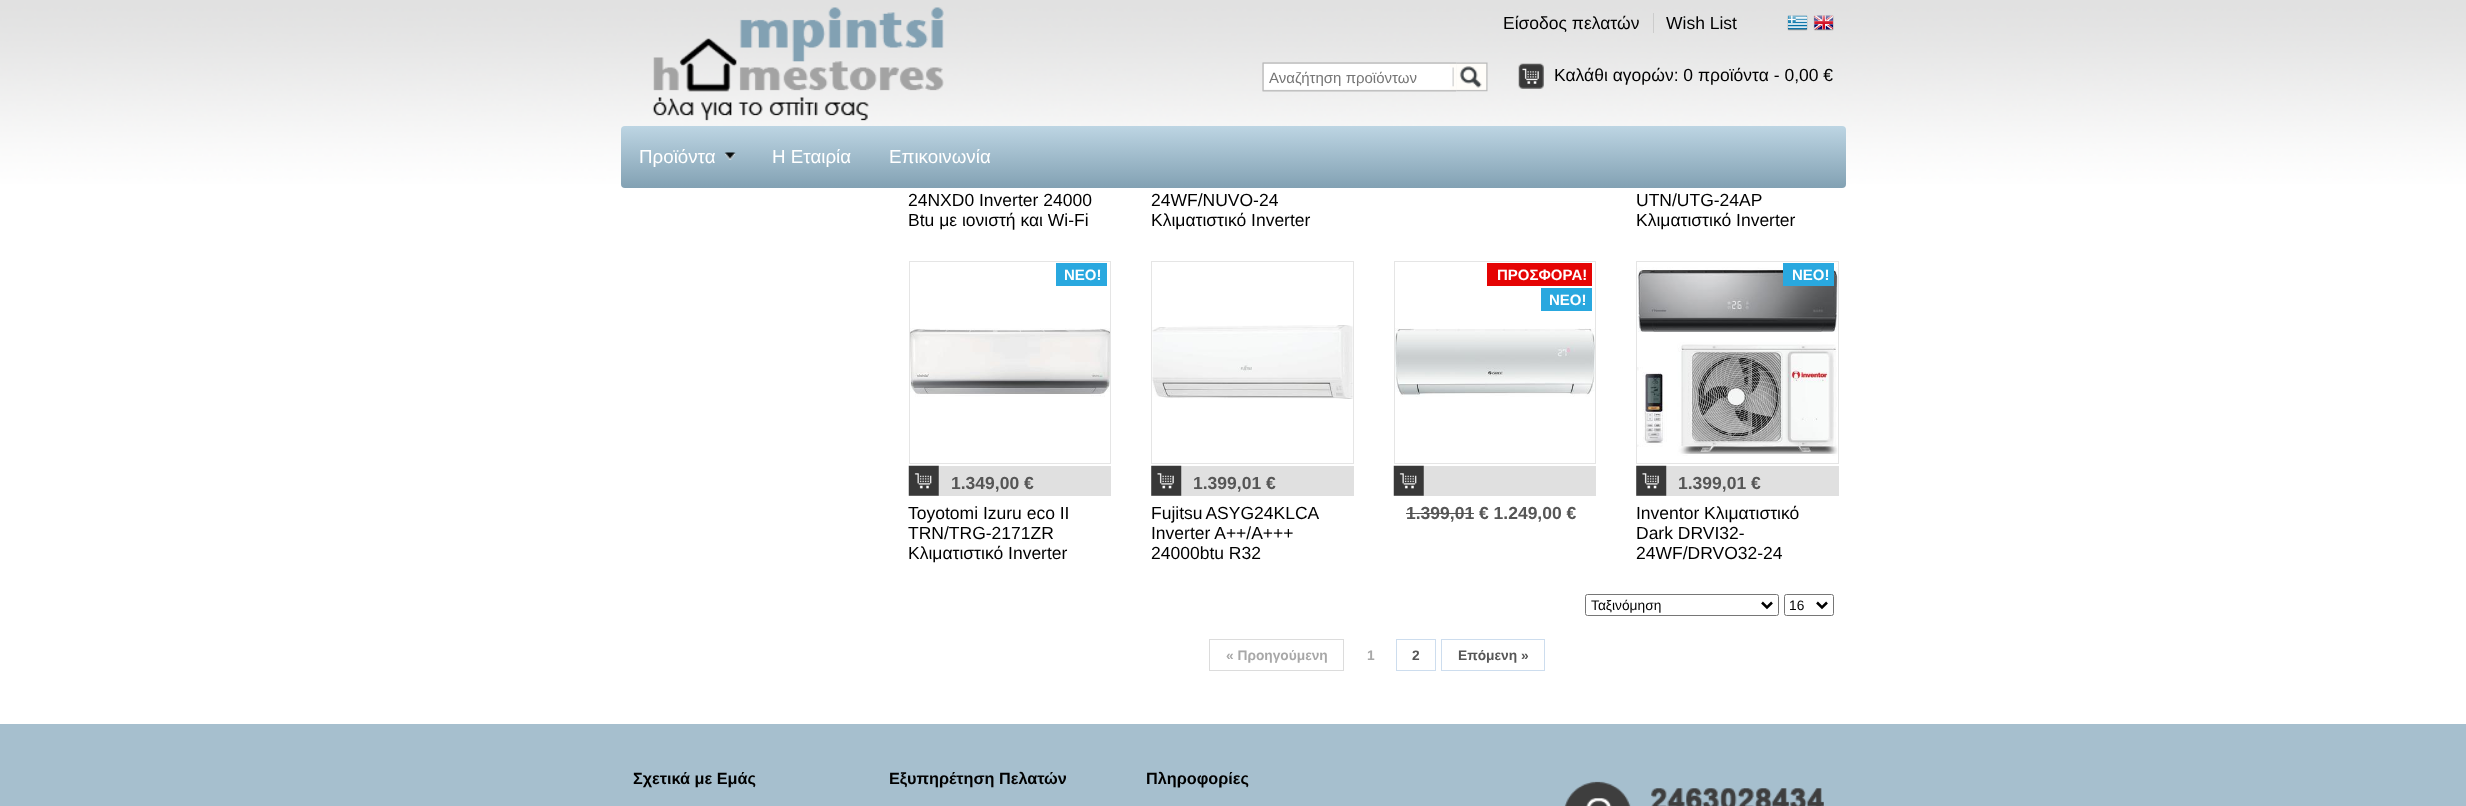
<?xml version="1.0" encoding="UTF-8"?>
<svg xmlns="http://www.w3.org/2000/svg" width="2466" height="806">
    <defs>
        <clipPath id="clip1"><rect x="1269" y="69" width="181" height="17"/></clipPath>
        <linearGradient id="g1" gradientUnits="userSpaceOnUse" x1="1234" y1="126" x2="1234" y2="188"><stop offset="0" stop-color="#BDD5E3"/><stop offset="1" stop-color="#82A1B3"/></linearGradient>
    </defs>
    <rect width="100%" height="100%" fill="#FFFFFF"/>
    <image x="0" y="0" width="2466" height="184" href="img_01.png"/>
    <image x="652" y="7" width="292" height="114" href="img_02.png"/>
    <text x="1503" y="29" font-family="Liberation Sans" font-size="17.5" fill="#000000">Είσοδος πελατών</text>
    <rect x="1653" y="13" width="1" height="20" fill="#CCCCCC"/>
    <text x="1666" y="29" font-family="Liberation Sans" font-size="17.5" fill="#000000">Wish List</text>
    <image x="1787" y="15" width="21" height="16" href="img_03.png"/>
    <image x="1813" y="15" width="21" height="16" href="img_04.png"/>
    <image x="1456" y="62" width="32" height="30" href="img_07.png"/>
    <image x="1262" y="62" width="195" height="30" href="img_05.png"/>
    <image x="1262" y="62" width="194" height="30" href="img_06.png"/>
    <g clip-path="url(#clip1)">
        <text x="1269" y="83" font-family="Liberation Sans" font-size="15" fill="#757575">Αναζήτηση προϊόντων</text>
    </g>
    <image x="1518" y="63" width="26" height="26" href="img_08.png"/>
    <text x="1554" y="81" font-family="Liberation Sans" font-size="17.5" fill="#000000">Καλάθι αγορών: 0 προϊόντα - 0,00 €</text>
    <rect x="621" y="126" width="1225" height="62" rx="4" fill="url(#g1)"/>
    <image x="724" y="152" width="12" height="8" href="img_09.png"/>
    <text x="639" y="163" font-family="Liberation Sans" font-size="18.75" fill="#FFFFFF">Προϊόντα</text>
    <text x="772" y="163" font-family="Liberation Sans" font-size="18.75" fill="#FFFFFF">Η Εταιρία</text>
    <text x="889" y="163" font-family="Liberation Sans" font-size="18.75" fill="#FFFFFF">Επικοινωνία</text>
    <text font-family="Liberation Sans" font-size="17.5" fill="#000000">
        <tspan x="908" y="206">24NXD0 Inverter 24000</tspan>
        <tspan x="908" y="226">Btu με ιονιστή και Wi-Fi</tspan>
    </text>
    <text font-family="Liberation Sans" font-size="17.5" fill="#000000">
        <tspan x="1151" y="206">24WF/NUVO-24</tspan>
        <tspan x="1151" y="226">Κλιματιστικό Inverter</tspan>
    </text>
    <text font-family="Liberation Sans" font-size="17.5" fill="#000000">
        <tspan x="1636" y="206">UTN/UTG-24ΑP</tspan>
        <tspan x="1636" y="226">Κλιματιστικό Inverter</tspan>
    </text>
    <rect x="909.5" y="261.5" width="201" height="202" fill="none" stroke="#E5E5E5"/>
    <rect x="1056" y="263" width="51" height="23" fill="#29A8DF"/>
    <text x="1064" y="280" font-family="Liberation Sans" font-size="15" font-weight="700" fill="#FFFFFF">ΝΕΟ!</text>
    <image x="910" y="328" width="200" height="69" href="img_10.png"/>
    <rect x="909" y="466" width="202" height="30" fill="#E0E0E0"/>
    <image x="908" y="465" width="31" height="31" href="img_11.png"/>
    <text x="951" y="489" font-family="Liberation Sans" font-size="17.5" font-weight="700" fill="#565656">1.349,00 €</text>
    <text font-family="Liberation Sans" font-size="17.5" fill="#000000">
        <tspan x="908" y="519">Toyotomi Izuru eco II</tspan>
        <tspan x="908" y="539">TRN/TRG-2171ZR</tspan>
        <tspan x="908" y="559">Κλιματιστικό Inverter</tspan>
    </text>
    <rect x="1151.5" y="261.5" width="202" height="202" fill="none" stroke="#E5E5E5"/>
    <image x="1152" y="325" width="201" height="74" href="img_12.png"/>
    <rect x="1151" y="466" width="203" height="30" fill="#E0E0E0"/>
    <image x="1151" y="465" width="31" height="31" href="img_13.png"/>
    <text x="1193" y="489" font-family="Liberation Sans" font-size="17.5" font-weight="700" fill="#565656">1.399,01 €</text>
    <text font-family="Liberation Sans" font-size="17.5" fill="#000000">
        <tspan x="1151" y="519" word-spacing="-1">Fujitsu ASYG24KLCA</tspan>
        <tspan x="1151" y="539">Inverter A++/A+++</tspan>
        <tspan x="1151" y="559">24000btu R32</tspan>
    </text>
    <rect x="1394.5" y="261.5" width="201" height="202" fill="none" stroke="#E5E5E5"/>
    <rect x="1487" y="263" width="105" height="23" fill="#E50404"/>
    <text x="1497" y="280" font-family="Liberation Sans" font-size="15" font-weight="700" fill="#FFFFFF">ΠΡΟΣΦΟΡΑ!</text>
    <rect x="1541" y="288" width="51" height="23" fill="#29A8DF"/>
    <text x="1549" y="305" font-family="Liberation Sans" font-size="15" font-weight="700" fill="#FFFFFF">ΝΕΟ!</text>
    <image x="1395" y="328" width="200" height="69" href="img_14.png"/>
    <rect x="1394" y="466" width="202" height="30" fill="#E0E0E0"/>
    <image x="1393" y="465" width="31" height="31" href="img_11.png"/>
    <text x="1406" y="519" font-family="Liberation Sans" font-size="17.5" font-weight="700" fill="#565656">1.399,01 € 1.249,00 €</text>
    <rect x="1406" y="513" width="68" height="1" fill="#545454"/>
    <rect x="1636.5" y="261.5" width="202" height="202" fill="none" stroke="#E5E5E5"/>
    <image x="1637" y="267" width="201" height="189" href="img_15.png"/>
    <rect x="1783" y="263" width="51" height="23" fill="#29A8DF"/>
    <text x="1792" y="280" font-family="Liberation Sans" font-size="15" font-weight="700" fill="#FFFFFF">ΝΕΟ!</text>
    <rect x="1636" y="466" width="203" height="30" fill="#E0E0E0"/>
    <image x="1636" y="465" width="31" height="31" href="img_13.png"/>
    <text x="1678" y="489" font-family="Liberation Sans" font-size="17.5" font-weight="700" fill="#565656">1.399,01 €</text>
    <text font-family="Liberation Sans" font-size="17.5" fill="#000000">
        <tspan x="1636" y="519">Inventor Κλιματιστικό</tspan>
        <tspan x="1636" y="539">Dark DRVI32-</tspan>
        <tspan x="1636" y="559">24WF/DRVO32-24</tspan>
    </text>
    <rect x="1585.5" y="594.5" width="193" height="21" rx="2" fill="none" stroke="#767676"/>
    <path d="M 1762 602.5 L 1767 607.5 L 1772 602.5" fill="none" stroke="#000000" stroke-width="2.5"/>
    <text x="1591" y="610" font-family="Liberation Sans" font-size="13.75" fill="#000000">Ταξινόμηση</text>
    <rect x="1784.5" y="594.5" width="49" height="21" rx="2" fill="none" stroke="#767676"/>
    <path d="M 1817 602.5 L 1822 607.5 L 1827 602.5" fill="none" stroke="#000000" stroke-width="2.5"/>
    <text x="1789" y="610" font-family="Liberation Sans" font-size="13.75" fill="#000000">16</text>
    <rect x="1209.5" y="639.5" width="134" height="31" fill="none" stroke="#DCDCDC"/>
    <text x="1226" y="660" font-family="Liberation Sans" font-size="13.75" font-weight="700" fill="#A8A8A8">« Προηγούμενη</text>
    <text x="1367" y="660" font-family="Liberation Sans" font-size="13.75" font-weight="700" fill="#A8A8A8">1</text>
    <rect x="1396.5" y="639.5" width="39" height="31" fill="none" stroke="#CDDDEE"/>
    <text x="1412" y="660" font-family="Liberation Sans" font-size="13.75" font-weight="700" fill="#565656">2</text>
    <rect x="1441.5" y="639.5" width="103" height="31" fill="none" stroke="#CDDDEE"/>
    <text x="1458" y="660" font-family="Liberation Sans" font-size="13.75" font-weight="700" fill="#565656">Επόμενη »</text>
    <rect x="0" y="724" width="2466" height="82" fill="#A6BFCE"/>
    <text x="633" y="784" font-family="Liberation Sans" font-size="16.25" font-weight="700" fill="#000000">Σχετικά με Εμάς</text>
    <text x="889" y="784" font-family="Liberation Sans" font-size="16.25" font-weight="700" fill="#000000">Εξυπηρέτηση Πελατών</text>
    <text x="1146" y="784" font-family="Liberation Sans" font-size="16.25" font-weight="700" fill="#000000">Πληροφορίες</text>
    <image x="1564" y="781" width="260" height="25" href="img_16.png"/>
</svg>
